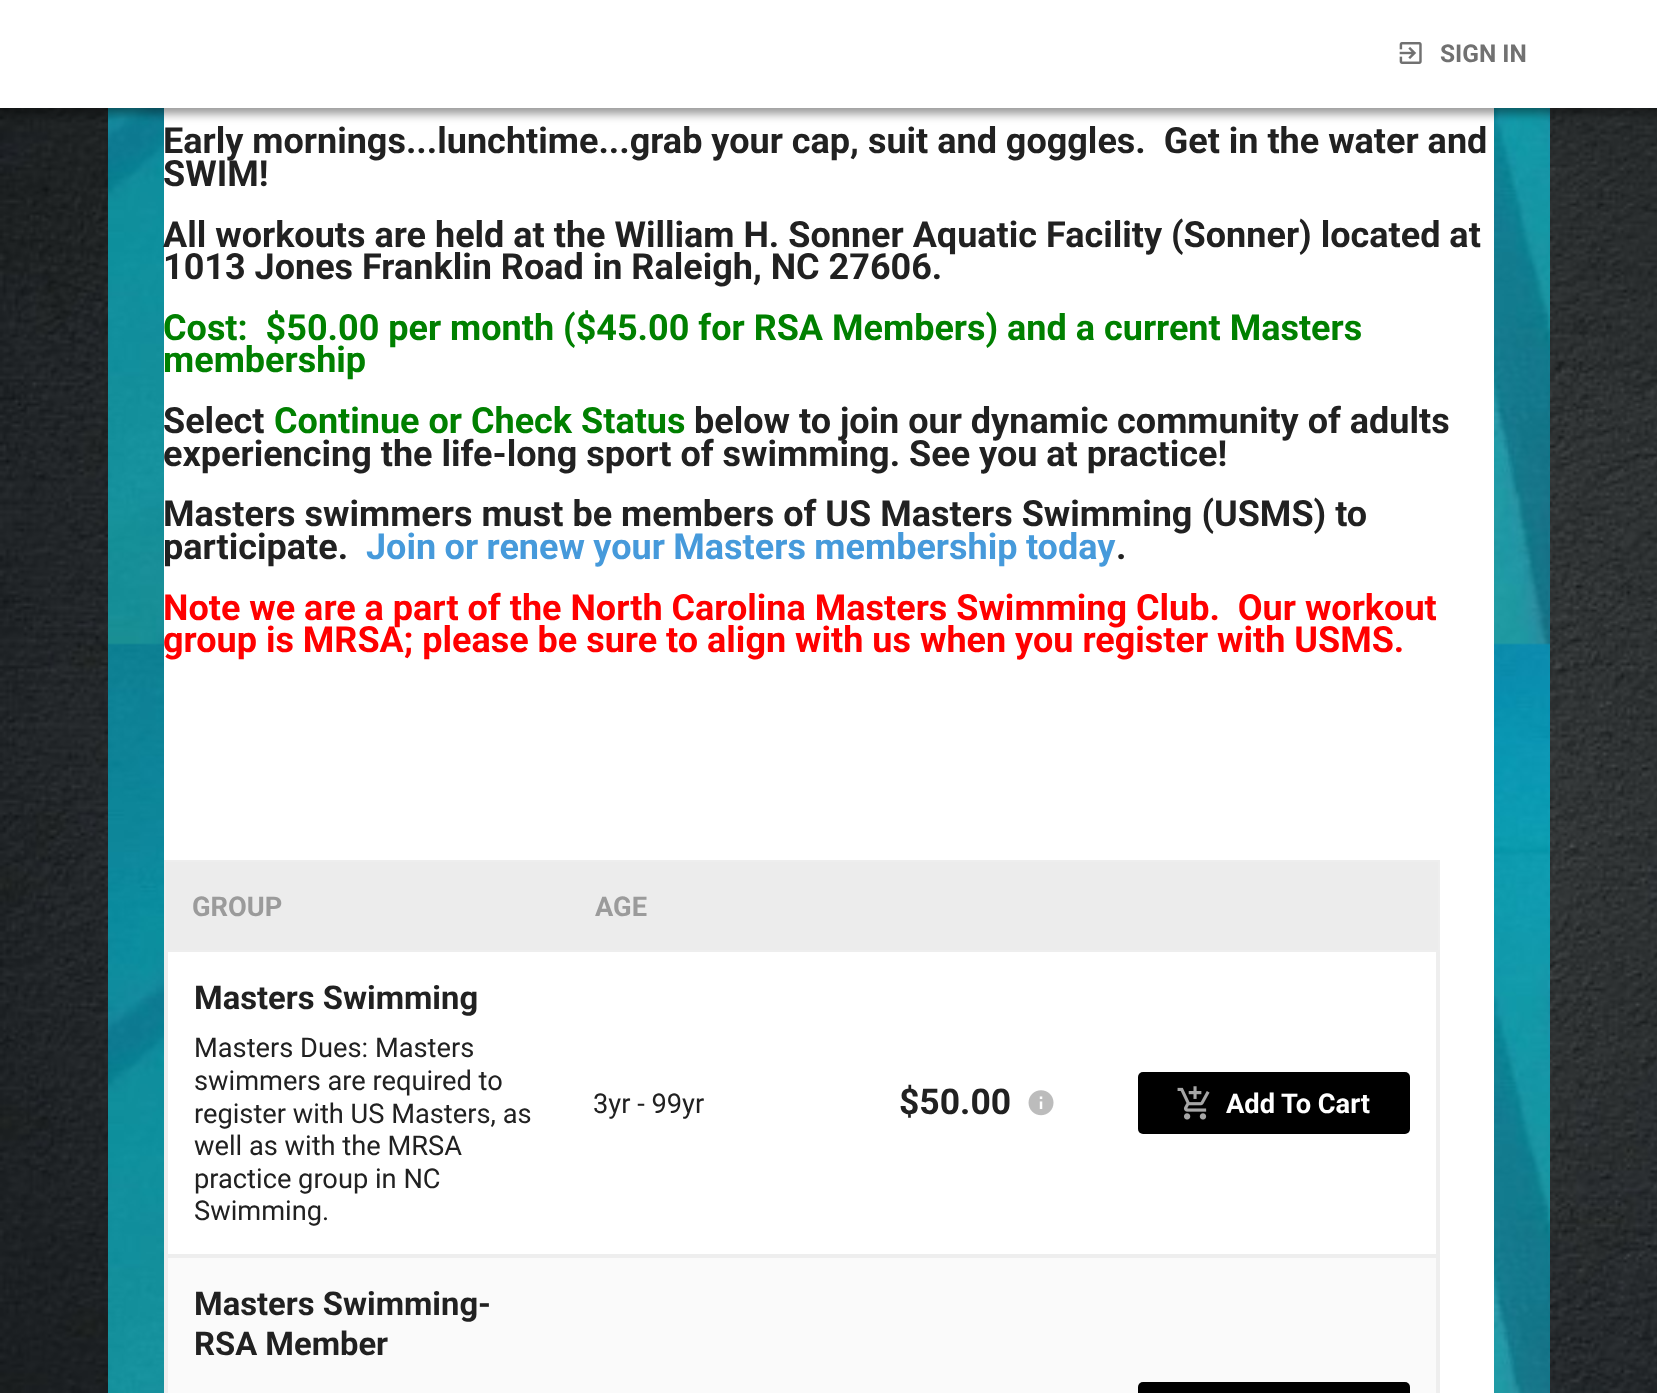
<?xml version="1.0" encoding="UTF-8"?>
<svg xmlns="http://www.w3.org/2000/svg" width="1657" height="1393">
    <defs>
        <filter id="blur1" x="-50%" y="-200%" width="200%" height="500%"><feGaussianBlur stdDeviation="5"/></filter>
    </defs>
    <rect width="100%" height="100%" fill="#FFFFFF"/>
    <image x="0" y="108" width="1657" height="1285" href="img_01.png"/>
    <image x="108" y="108" width="1442" height="1285" href="img_03.png"/>
    <rect x="164" y="108" width="1330" height="1285" fill="#FFFFFF"/>
    <rect x="-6" y="-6" width="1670" height="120" fill="#000000" fill-opacity="0.4" filter="url(#blur1)"/>
    <rect x="0" y="0" width="1657" height="108" fill="#FFFFFF"/>
    <image x="1399" y="42" width="23" height="22" href="img_02.png"/>
    <text x="1440" y="62" font-family="Roboto" font-size="24.5" font-weight="700" fill="#717171">SIGN IN</text>
    <text font-family="Roboto" font-size="36" font-weight="700" fill="#212121" xml:space="preserve"><tspan x="163" y="153">Early mornings...lunchtime...grab your cap, suit and goggles.  Get in the water and</tspan><tspan x="163" y="186">SWIM!</tspan><tspan x="163" y="247">All workouts are held at the William H. Sonner Aquatic Facility (Sonner) located at</tspan><tspan x="163" y="279">1013 Jones Franklin Road in Raleigh, NC 27606.</tspan></text>
    <text font-family="Roboto" font-size="36" font-weight="700" fill="#008000" xml:space="preserve"><tspan x="163" y="340">Cost:  $50.00 per month ($45.00 for RSA Members) and a current Masters</tspan><tspan x="163" y="372">membership</tspan></text>
    <text x="163" y="433" font-family="Roboto" font-size="36" font-weight="700" fill="#212121">Select</text>
    <text x="274" y="433" font-family="Roboto" font-size="36" font-weight="700" fill="#008000">Continue or Check Status</text>
    <text x="694" y="433" font-family="Roboto" font-size="36" font-weight="700" fill="#212121">below to join our dynamic community of adults</text>
    <text font-family="Roboto" font-size="36" font-weight="700" fill="#212121">
        <tspan x="163" y="466">experiencing the life-long sport of swimming. See you at practice!</tspan>
        <tspan x="163" y="526">Masters swimmers must be members of US Masters Swimming (USMS) to</tspan>
        <tspan x="163" y="559">participate.</tspan>
    </text>
    <text x="366" y="559" word-spacing="-0.5" font-family="Roboto" font-size="36" font-weight="700" fill="#469ADB">Join or renew your Masters membership today</text>
    <text x="1116" y="559" font-family="Roboto" font-size="36" font-weight="700" fill="#212121">.</text>
    <text font-family="Roboto" font-size="36" font-weight="700" fill="#FF0000" xml:space="preserve"><tspan x="163" y="620">Note we are a part of the North Carolina Masters Swimming Club.  Our workout</tspan><tspan x="163" y="652">group is MRSA; please be sure to align with us when you register with USMS.</tspan></text>
    <rect x="165" y="861" width="1274" height="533" fill="none" stroke="#EEEEEE" stroke-width="2"/>
    <rect x="166" y="862" width="1272" height="88" fill="#ECECEC"/>
    <text x="192" y="916" font-family="Roboto" font-size="27.25" font-weight="700" fill="#9B9B9B">GROUP</text>
    <text x="595" y="916" font-family="Roboto" font-size="27.25" font-weight="700" fill="#9B9B9B">AGE</text>
    <rect x="167" y="951" width="1270" height="304" fill="none" stroke="#EEEEEE" stroke-width="2"/>
    <text x="194" y="1009" font-family="Roboto" font-size="32.75" font-weight="700" fill="#212121">Masters Swimming</text>
    <text font-family="Roboto" font-size="27.25" fill="#212121">
        <tspan x="194" y="1057">Masters Dues: Masters</tspan>
        <tspan x="194" y="1090">swimmers are required to</tspan>
        <tspan x="194" y="1123">register with US Masters, as</tspan>
        <tspan x="194" y="1155">well as with the MRSA</tspan>
        <tspan x="194" y="1188">practice group in NC</tspan>
        <tspan x="194" y="1220">Swimming.</tspan>
    </text>
    <text x="593" y="1113" font-family="Roboto" font-size="27.25" fill="#212121">3yr - 99yr</text>
    <text x="899" y="1114" font-family="Roboto" font-size="35.5" font-weight="700" fill="#212121">$50.00</text>
    <image x="1028" y="1090" width="26" height="26" href="img_04.png"/>
    <rect x="1138" y="1072" width="272" height="62" rx="5" fill="#000000"/>
    <image x="1177" y="1086" width="33" height="34" href="img_05.png"/>
    <text x="1226" y="1113" font-family="Roboto" font-size="27.25" font-weight="700" fill="#FFFFFF">Add To Cart</text>
    <rect x="167" y="1257" width="1270" height="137" fill="#FAFAFA" stroke="#EEEEEE" stroke-width="2"/>
    <text font-family="Roboto" font-size="32.75" font-weight="700" fill="#212121">
        <tspan x="194" y="1315">Masters Swimming-</tspan>
        <tspan x="194" y="1355">RSA Member</tspan>
    </text>
    <rect x="1138" y="1382" width="272" height="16" rx="5" fill="#000000"/>
</svg>
